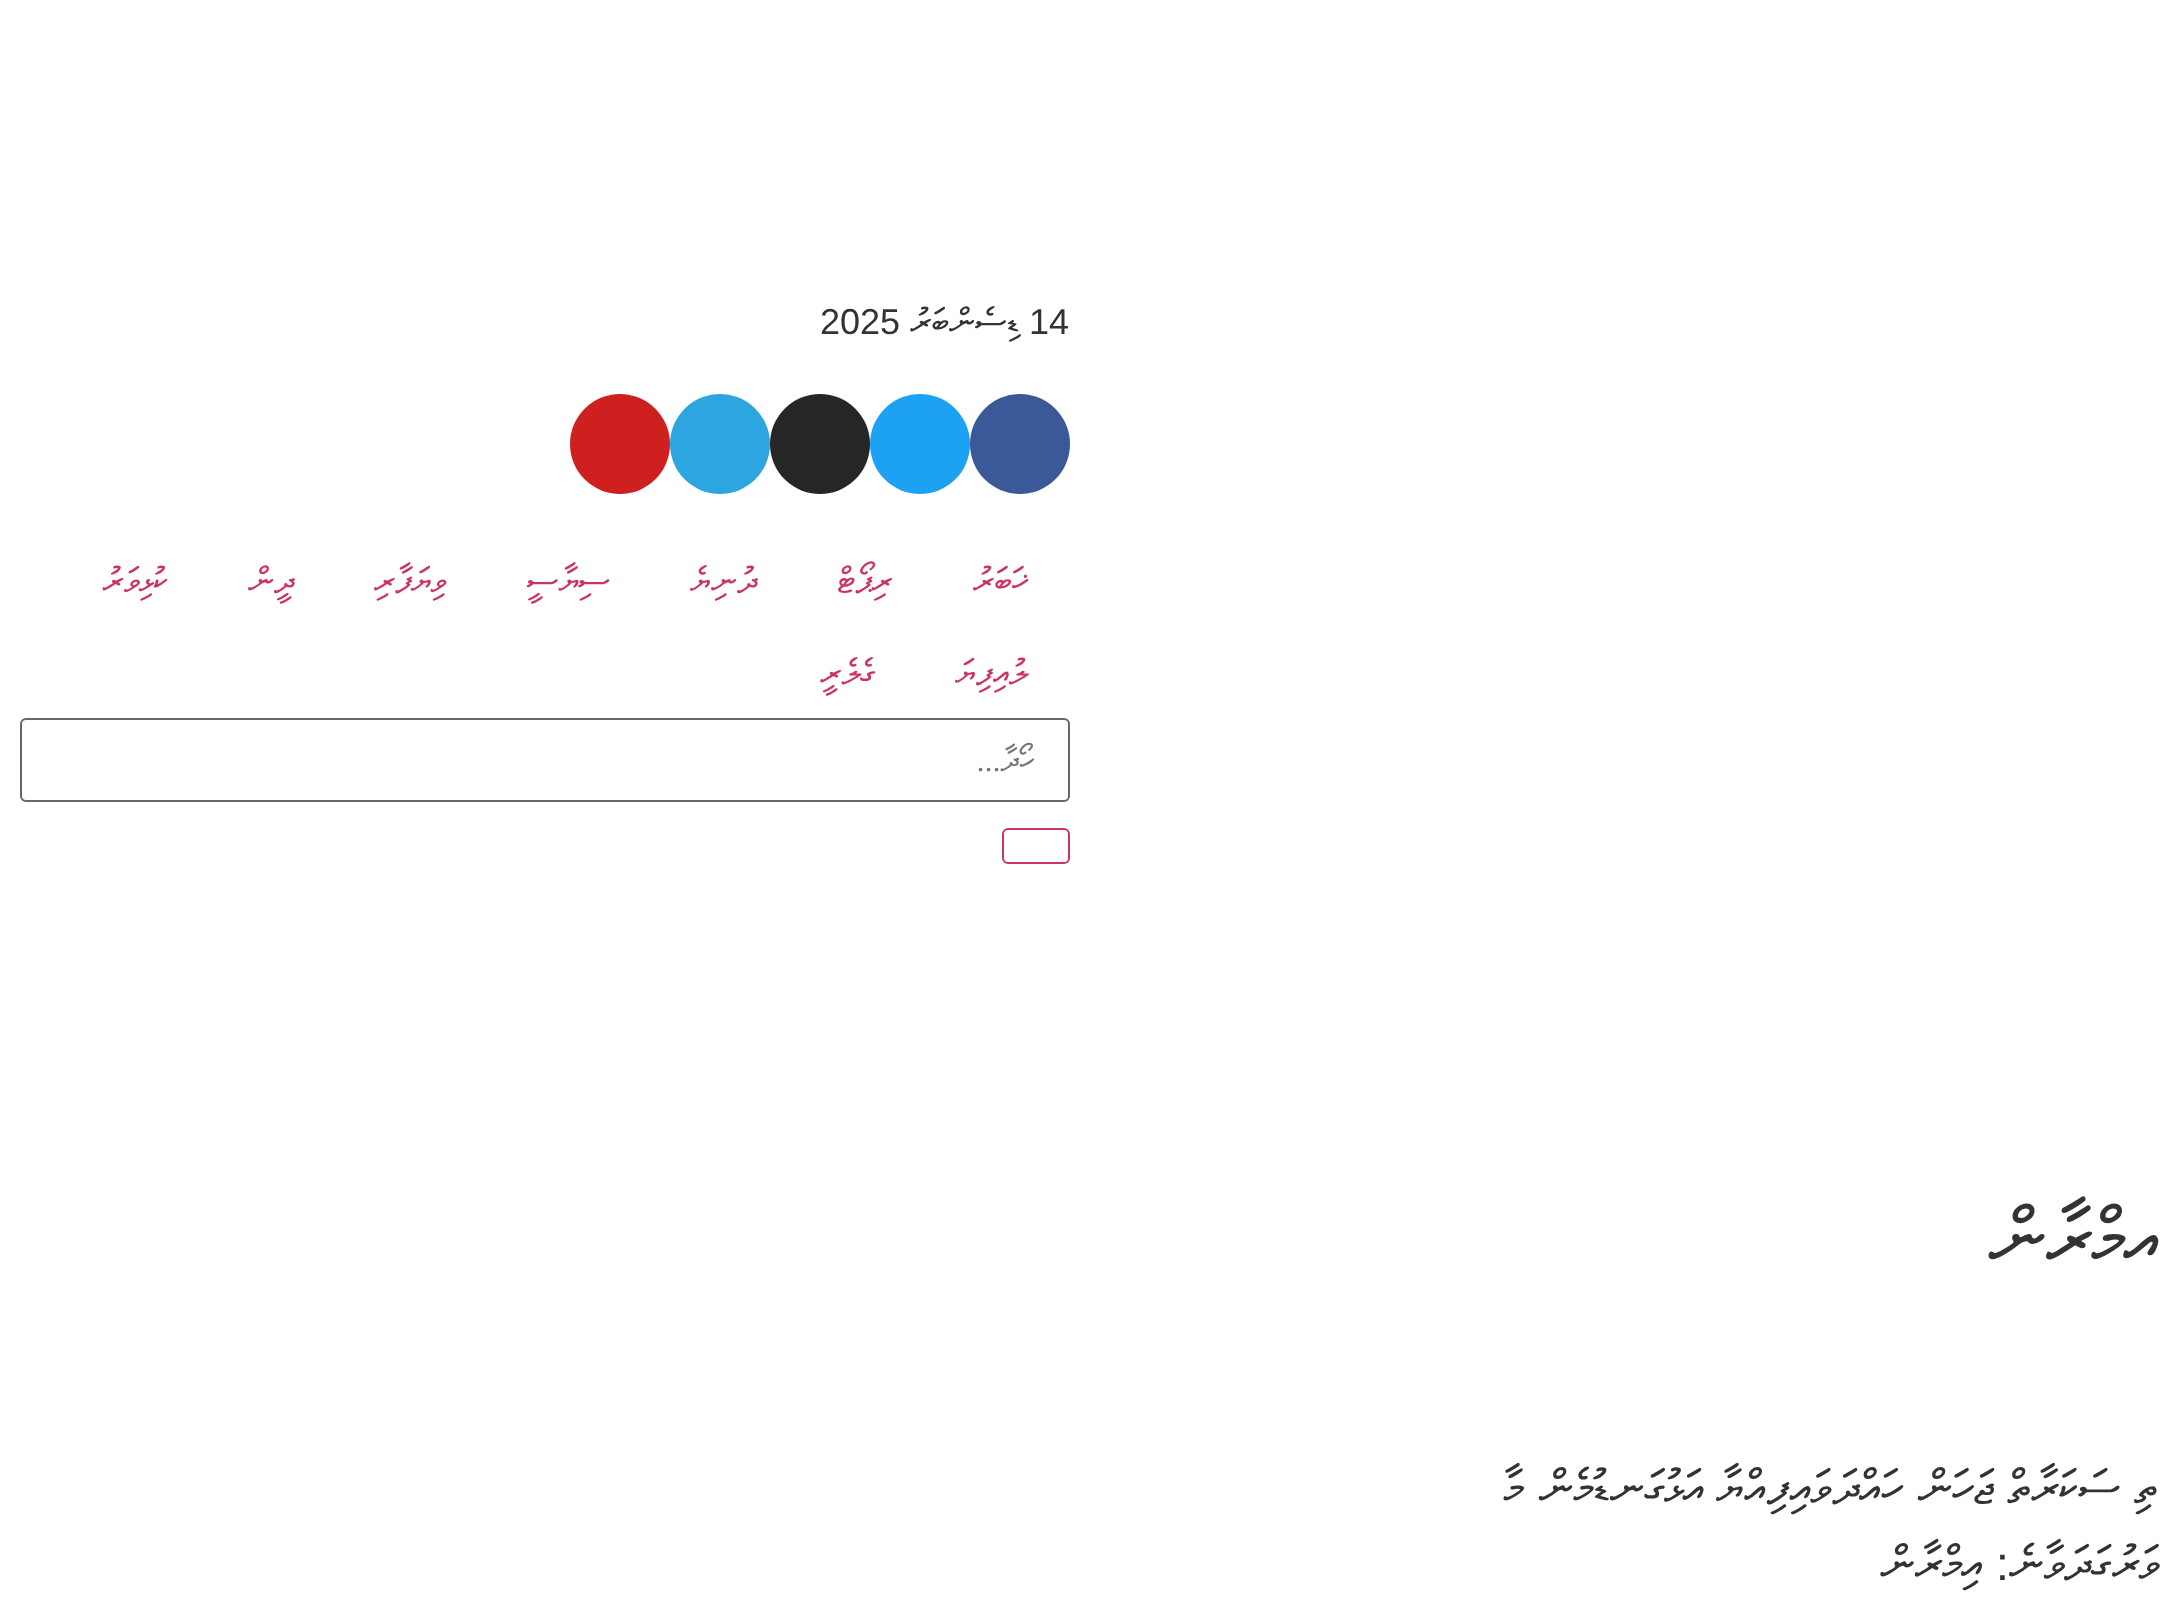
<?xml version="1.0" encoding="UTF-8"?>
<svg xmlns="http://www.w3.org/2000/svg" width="2178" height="1607">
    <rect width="100%" height="100%" fill="#FFFFFF"/>
    <text x="1029" y="334" font-family="Liberation Sans" font-size="36" fill="#333333">14</text>
    <text x="1019" y="334" font-family="FreeSerif" font-size="36" direction="rtl" fill="#333333">ޑިސެންބަރު</text>
    <text x="820" y="334" font-family="Liberation Sans" font-size="36" fill="#333333">2025</text>
    <circle cx="1020" cy="444" r="50" fill="#3B5998"/>
    <circle cx="920" cy="444" r="50" fill="#1DA1F2"/>
    <circle cx="820" cy="444" r="50" fill="#262626"/>
    <circle cx="720" cy="444" r="50" fill="#2CA5E0"/>
    <circle cx="620" cy="444" r="50" fill="#CD201F"/>
    <text x="1029" y="593" font-family="FreeSerif" font-size="36" direction="rtl" fill="#CC3366">ޚަބަރު</text>
    <text x="893" y="593" font-family="FreeSerif" font-size="36" direction="rtl" fill="#CC3366">ރިޕޯޓް</text>
    <text x="757" y="593" font-family="FreeSerif" font-size="36" direction="rtl" fill="#CC3366">ދުނިޔެ</text>
    <text x="610" y="593" font-family="FreeSerif" font-size="36" direction="rtl" fill="#CC3366">ސިޔާސީ</text>
    <text x="447" y="593" font-family="FreeSerif" font-size="36" direction="rtl" fill="#CC3366">ވިޔަފާރި</text>
    <text x="294" y="593" font-family="FreeSerif" font-size="36" direction="rtl" fill="#CC3366">ދީން</text>
    <text x="168" y="593" font-family="FreeSerif" font-size="36" direction="rtl" fill="#CC3366">ކުޅިވަރު</text>
    <text x="1029" y="685" font-family="FreeSerif" font-size="36" direction="rtl" fill="#CC3366">ލުއިފިޔަ</text>
    <text x="875" y="685" font-family="FreeSerif" font-size="36" direction="rtl" fill="#CC3366">ގެލެރީ</text>
    <rect x="21" y="719" width="1048" height="82" rx="5" fill="none" stroke="#666666" stroke-width="2"/>
    <text x="1035" y="771" font-family="FreeSerif" font-size="32" direction="rtl" fill="#757575">ހޯދާ...</text>
    <rect x="1003" y="829" width="66" height="34" rx="5" fill="none" stroke="#CC3366" stroke-width="2"/>
    <text x="2158" y="1265" font-family="FreeSerif" font-size="80" direction="rtl" fill="#333333">އމްރާން</text>
    <text font-family="FreeSerif" font-size="48" direction="rtl" fill="#333333">
        <tspan x="2158" y="1504" word-spacing="1.5">ތި ސަކަރާތް ޖަހަން ހައްދަވައިފިއްޔާ އަޅުގަނޑުމެން މާ</tspan>
        <tspan x="2158" y="1580">ވަރުގަދަވާނެ</tspan>
    </text>
    <text x="2009" y="1580" font-family="Liberation Sans" font-size="48" direction="rtl" fill="#333333">:</text>
    <text x="1982" y="1580" font-family="FreeSerif" font-size="48" direction="rtl" fill="#333333">އިމްރާން</text>
</svg>
